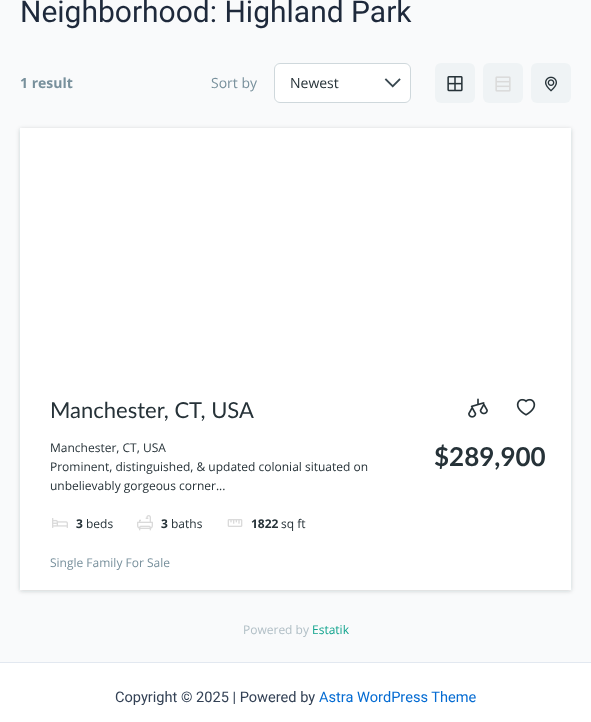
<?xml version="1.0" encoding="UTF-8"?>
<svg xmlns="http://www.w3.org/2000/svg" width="591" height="722">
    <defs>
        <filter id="blur1" x="-50%" y="-200%" width="200%" height="500%"><feGaussianBlur stdDeviation="2"/></filter>
    </defs>
    <rect width="100%" height="100%" fill="#F9FAFB"/>
    <text x="20" y="22" font-family="Roboto" font-size="30" fill="#1E293B">Neighborhood: Highland Park</text>
    <text x="20" y="88" font-family="Open Sans" font-size="14" font-weight="700" fill="#78909C">1 result</text>
    <text x="211" y="88" font-family="Open Sans" font-size="14" fill="#78909C">Sort by</text>
    <rect x="274" y="63" width="137" height="40" rx="6" fill="#FFFFFF"/>
    <image x="384" y="78" width="17" height="10" href="img_01.png"/>
    <rect x="274.5" y="63.5" width="136" height="39" rx="5.5" fill="none" stroke="#CFD8DC"/>
    <text x="290" y="88" font-family="Open Sans" font-size="14" fill="#263238">Newest</text>
    <rect x="435" y="63" width="40" height="40" rx="6" fill="#EFF3F5"/>
    <image x="447" y="76" width="16" height="16" href="img_02.png"/>
    <rect x="483" y="63" width="40" height="40" rx="6" fill="#EFF3F5"/>
    <image x="495" y="76" width="16" height="16" href="img_03.png"/>
    <rect x="531" y="63" width="40" height="40" rx="6" fill="#EFF3F5"/>
    <image x="545" y="76" width="12" height="16" href="img_04.png"/>
    <rect x="20" y="129" width="551" height="462" fill="#263238" fill-opacity="0.2" filter="url(#blur1)"/>
    <rect x="20" y="128" width="551" height="462" fill="#FFFFFF"/>
    <text x="50" y="418" font-family="Lato" font-size="22" fill="#263238">Manchester, CT, USA</text>
    <text font-family="Open Sans" font-size="12" fill="#263238">
        <tspan x="50" y="452">Manchester, CT, USA</tspan>
        <tspan x="50" y="471">Prominent, distinguished, &amp; updated colonial situated on</tspan>
        <tspan x="50" y="490">unbelievably gorgeous corner...</tspan>
    </text>
    <image x="52" y="518" width="16" height="10" href="img_05.png"/>
    <text x="76" y="528" font-family="Open Sans" font-size="12" font-weight="700" fill="#263238">3</text>
    <text x="86" y="528" font-family="Open Sans" font-size="12" fill="#263238">beds</text>
    <image x="137" y="515" width="16" height="16" href="img_06.png"/>
    <text x="161" y="528" font-family="Open Sans" font-size="12" font-weight="700" fill="#263238">3</text>
    <text x="171" y="528" font-family="Open Sans" font-size="12" fill="#263238">baths</text>
    <image x="227" y="519" width="16" height="8" href="img_07.png"/>
    <text x="251" y="528" font-family="Open Sans" font-size="12" font-weight="700" fill="#263238">1822</text>
    <text x="281" y="528" font-family="Open Sans" font-size="12" fill="#263238">sq ft</text>
    <image x="468" y="398" width="20" height="20" href="img_08.png"/>
    <image x="516" y="398" width="20" height="18" href="img_09.png"/>
    <text x="434" y="466" font-family="Lato" font-size="26" font-weight="700" fill="#263238">$289,900</text>
    <text x="50" y="567" font-family="Open Sans" font-size="12" fill="#78909C">Single Family For Sale</text>
    <text x="243" y="634" font-family="Open Sans" font-size="12" fill="#B0BEC5">Powered by</text>
    <text x="312" y="634" font-family="Open Sans" font-size="12" fill="#13A48E">Estatik</text>
    <rect x="0" y="663" width="591" height="59" fill="#FFFFFF"/>
    <rect x="0" y="662" width="591" height="1" fill="#E2E8F0"/>
    <text x="115" y="702" font-family="Roboto" font-size="14.6" fill="#334155">Copyright © 2025 | Powered by</text>
    <text x="319" y="702" font-family="Roboto" font-size="14.6" fill="#046BD2">Astra WordPress Theme</text>
</svg>
